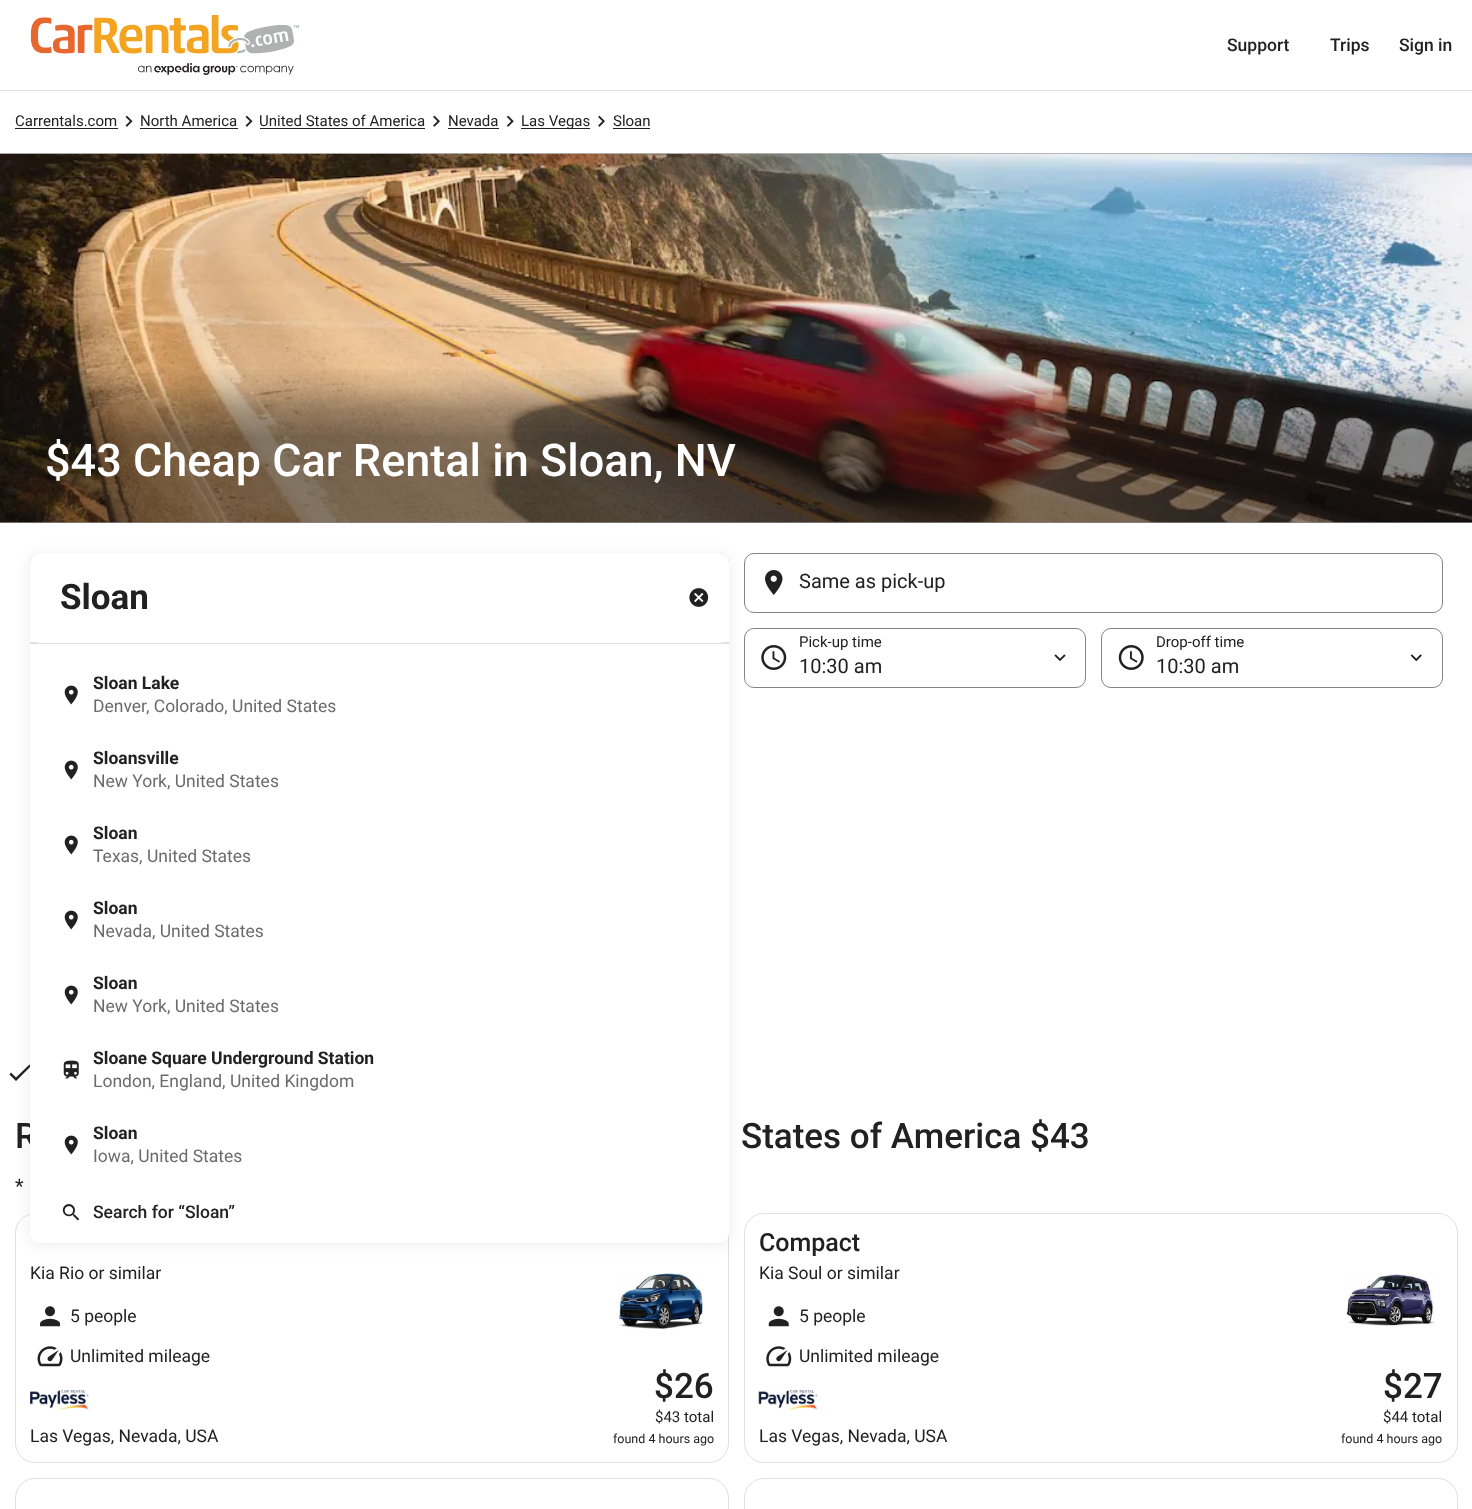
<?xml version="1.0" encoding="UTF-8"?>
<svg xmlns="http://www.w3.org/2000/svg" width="1472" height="1509">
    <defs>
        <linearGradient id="g1" gradientUnits="userSpaceOnUse" x1="736" y1="345" x2="736" y2="523"><stop offset="0.11" stop-color="#101010" stop-opacity="0"/><stop offset="0.23" stop-color="#101010" stop-opacity="0.11"/><stop offset="0.35" stop-color="#101010" stop-opacity="0.32"/><stop offset="0.52" stop-color="#101010" stop-opacity="0.5"/></linearGradient>
        <filter id="blur1" x="-50%" y="-200%" width="200%" height="500%"><feGaussianBlur stdDeviation="7.5"/></filter>
    </defs>
    <rect width="100%" height="100%" fill="#FFFFFF"/>
    <path d="M 0 90 V 91 H 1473 V 1 H 1472 V 90 Z" fill="#E2E2E2"/>
    <image x="30" y="15" width="269" height="60" href="img_01.png"/>
    <text x="1227" y="51" font-family="Roboto" font-size="17.5" font-weight="500" fill="#212121">Support</text>
    <text x="1330" y="51" font-family="Roboto" font-size="17.5" font-weight="500" fill="#212121">Trips</text>
    <text x="1399" y="51" font-family="Roboto" font-size="17.5" font-weight="500" fill="#212121">Sign in</text>
    <rect x="0" y="153" width="1472" height="1" fill="#B3B3B3"/>
    <text x="15" y="126" font-family="Roboto" font-size="15" fill="#212121">Carrentals.com</text>
    <rect x="15" y="128" width="103" height="1" fill="#212121"/>
    <image x="125" y="115" width="8" height="12" href="img_02.png"/>
    <text x="140" y="126" font-family="Roboto" font-size="15" fill="#212121">North America</text>
    <rect x="140" y="128" width="98" height="1" fill="#212121"/>
    <image x="245" y="115" width="8" height="12" href="img_02.png"/>
    <text x="259" y="126" font-family="Roboto" font-size="15" fill="#212121">United States of America</text>
    <rect x="260" y="128" width="165" height="1" fill="#212121"/>
    <image x="433" y="115" width="7" height="12" href="img_03.png"/>
    <text x="448" y="126" font-family="Roboto" font-size="15" fill="#212121">Nevada</text>
    <rect x="448" y="128" width="51" height="1" fill="#212121"/>
    <image x="506" y="115" width="8" height="12" href="img_04.png"/>
    <rect x="521" y="128" width="69" height="1" fill="#212121"/>
    <text x="521" y="126" font-family="Roboto" font-size="15" fill="#212121">Las Vegas</text>
    <image x="598" y="115" width="7" height="12" href="img_03.png"/>
    <text x="613" y="126" font-family="Roboto" font-size="15" fill="#212121">Sloan</text>
    <rect x="613" y="128" width="37" height="1" fill="#212121"/>
    <image x="0" y="153" width="1472" height="370" href="img_05.png"/>
    <rect x="0" y="369" width="1472" height="154" fill="url(#g1)"/>
    <text x="45" y="476" font-family="Roboto" font-size="45" font-weight="500" fill="#FFFFFF">$43 Cheap Car Rental in Sloan, NV</text>
    <path d="M 16 1077.5 L 11 1072.5 L 9.5 1074.5 L 16 1081 L 31 1066 L 29.5 1064.5 Z" fill="#212121"/>
    <rect x="30.5" y="553.5" width="698" height="59" rx="9.5" fill="none" stroke="#858585"/>
    <rect x="744.5" y="553.5" width="698" height="59" rx="9.5" fill="none" stroke="#858585"/>
    <rect x="744.5" y="628.5" width="341" height="59" rx="9.5" fill="none" stroke="#858585"/>
    <image x="40" y="1306" width="20" height="21" href="img_15.png"/>
    <image x="37" y="1346" width="26" height="21" href="img_16.png"/>
    <image x="30" y="1390" width="59" height="20" href="img_17.png"/>
    <image x="616" y="1272" width="88" height="57" href="img_18.png"/>
    <rect x="15.5" y="1213.5" width="713" height="249" rx="19.5" fill="none" stroke="#E0E0E0"/>
    <image x="768" y="1306" width="21" height="21" href="img_19.png"/>
    <image x="766" y="1346" width="26" height="21" href="img_20.png"/>
    <image x="758" y="1390" width="60" height="20" href="img_21.png"/>
    <image x="1346" y="1273" width="89" height="53" href="img_22.png"/>
    <rect x="744.5" y="1213.5" width="713" height="249" rx="19.5" fill="none" stroke="#E0E0E0"/>
    <rect x="30" y="555" width="699" height="690" rx="10" fill="#101010" fill-opacity="0.08" filter="url(#blur1)"/>
    <text x="15" y="1148" font-family="Roboto" font-size="35" font-weight="500" fill="#212121">R</text>
    <rect x="30" y="553" width="699" height="690" rx="10" fill="#FFFFFF"/>
    <path d="M 30 642 V 644 H 729 V 561 V 642 Z" fill="#E0E0E0"/>
    <rect x="30" y="553" width="699" height="90" rx="10" fill="#FFFFFF"/>
    <text x="60" y="609" font-family="Roboto" font-size="35" font-weight="700" fill="#212121">Sloan</text>
    <image x="689" y="588" width="20" height="19" href="img_06.png"/>
    <image x="64" y="685" width="14" height="20" href="img_07.png"/>
    <text x="93" y="689" font-family="Roboto" font-size="17.5" font-weight="700" fill="#212121">Sloan Lake</text>
    <text x="93" y="712" font-family="Roboto" font-size="17.5" fill="#6B6B6B">Denver, Colorado, United States</text>
    <image x="64" y="760" width="14" height="20" href="img_07.png"/>
    <text x="93" y="764" font-family="Roboto" font-size="17.5" font-weight="700" fill="#212121">Sloansville</text>
    <text x="93" y="787" font-family="Roboto" font-size="17.5" fill="#6B6B6B">New York, United States</text>
    <image x="64" y="835" width="14" height="20" href="img_07.png"/>
    <text x="93" y="839" font-family="Roboto" font-size="17.5" font-weight="700" fill="#212121">Sloan</text>
    <text x="93" y="862" font-family="Roboto" font-size="17.5" fill="#6B6B6B">Texas, United States</text>
    <image x="64" y="910" width="14" height="20" href="img_07.png"/>
    <text x="93" y="914" font-family="Roboto" font-size="17.5" font-weight="700" fill="#212121">Sloan</text>
    <text x="93" y="937" font-family="Roboto" font-size="17.5" fill="#6B6B6B">Nevada, United States</text>
    <image x="64" y="985" width="14" height="20" href="img_07.png"/>
    <text x="93" y="989" font-family="Roboto" font-size="17.5" font-weight="700" fill="#212121">Sloan</text>
    <text x="93" y="1012" font-family="Roboto" font-size="17.5" fill="#6B6B6B">New York, United States</text>
    <image x="63" y="1060" width="16" height="19" href="img_08.png"/>
    <text x="93" y="1064" font-family="Roboto" font-size="17.5" font-weight="700" fill="#212121">Sloane Square Underground Station</text>
    <text x="93" y="1087" font-family="Roboto" font-size="17.5" fill="#6B6B6B">London, England, United Kingdom</text>
    <image x="64" y="1135" width="14" height="20" href="img_07.png"/>
    <text x="93" y="1139" font-family="Roboto" font-size="17.5" font-weight="700" fill="#212121">Sloan</text>
    <text x="93" y="1162" font-family="Roboto" font-size="17.5" fill="#6B6B6B">Iowa, United States</text>
    <image x="62" y="1204" width="18" height="17" href="img_09.png"/>
    <text x="93" y="1218" font-family="Roboto" font-size="17.5" font-weight="500" fill="#212121">Search for “Sloan”</text>
    <image x="765" y="570" width="18" height="25" href="img_10.png"/>
    <text x="799" y="588" font-family="Roboto" font-size="20" fill="#212121">Same as pick-up</text>
    <text x="799" y="647" font-family="Roboto" font-size="15" fill="#212121">Pick-up time</text>
    <image x="761" y="645" width="26" height="25" href="img_11.png"/>
    <text x="799" y="673" font-family="Roboto" font-size="20" fill="#212121">10:30 am</text>
    <image x="1054" y="654" width="12" height="8" href="img_12.png"/>
    <rect x="1101.5" y="628.5" width="341" height="59" rx="9.5" fill="none" stroke="#858585"/>
    <text x="1156" y="647" font-family="Roboto" font-size="15" fill="#212121">Drop-off time</text>
    <image x="1118" y="645" width="26" height="25" href="img_13.png"/>
    <text x="1156" y="673" font-family="Roboto" font-size="20" fill="#212121">10:30 am</text>
    <image x="1410" y="654" width="12" height="8" href="img_14.png"/>
    <text x="741" y="1148" font-family="Roboto" font-size="35" font-weight="500" fill="#212121">States of America $43</text>
    <text x="15" y="1193" font-family="Roboto" font-size="20" fill="#212121">*</text>
    <text x="30" y="1279" font-family="Roboto" font-size="17.5" fill="#212121">Kia Rio or similar</text>
    <text x="70" y="1322" font-family="Roboto" font-size="17.5" fill="#212121">5 people</text>
    <text x="70" y="1362" font-family="Roboto" font-size="17.5" fill="#212121">Unlimited mileage</text>
    <text x="30" y="1442" font-family="Roboto" font-size="17.5" fill="#212121">Las Vegas, Nevada, USA</text>
    <text x="654" y="1398" font-family="Roboto" font-size="35" font-weight="500" fill="#212121">$26</text>
    <text x="655" y="1422" font-family="Roboto" font-size="15" fill="#212121">$43 total</text>
    <text x="613" y="1443" font-family="Roboto" font-size="12.5" fill="#212121">found 4 hours ago</text>
    <text x="759" y="1251" font-family="Roboto" font-size="25" font-weight="500" fill="#212121">Compact</text>
    <text x="759" y="1279" font-family="Roboto" font-size="17.5" fill="#212121">Kia Soul or similar</text>
    <text x="799" y="1322" font-family="Roboto" font-size="17.5" fill="#212121">5 people</text>
    <text x="799" y="1362" font-family="Roboto" font-size="17.5" fill="#212121">Unlimited mileage</text>
    <text x="759" y="1442" font-family="Roboto" font-size="17.5" fill="#212121">Las Vegas, Nevada, USA</text>
    <text x="1383" y="1398" font-family="Roboto" font-size="35" font-weight="500" fill="#212121">$27</text>
    <text x="1383" y="1422" font-family="Roboto" font-size="15" fill="#212121">$44 total</text>
    <text x="1341" y="1443" font-family="Roboto" font-size="12.5" fill="#212121">found 4 hours ago</text>
    <rect x="15.5" y="1478.5" width="713" height="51" rx="19.5" fill="none" stroke="#E0E0E0"/>
    <rect x="744.5" y="1478.5" width="713" height="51" rx="19.5" fill="none" stroke="#E0E0E0"/>
</svg>
